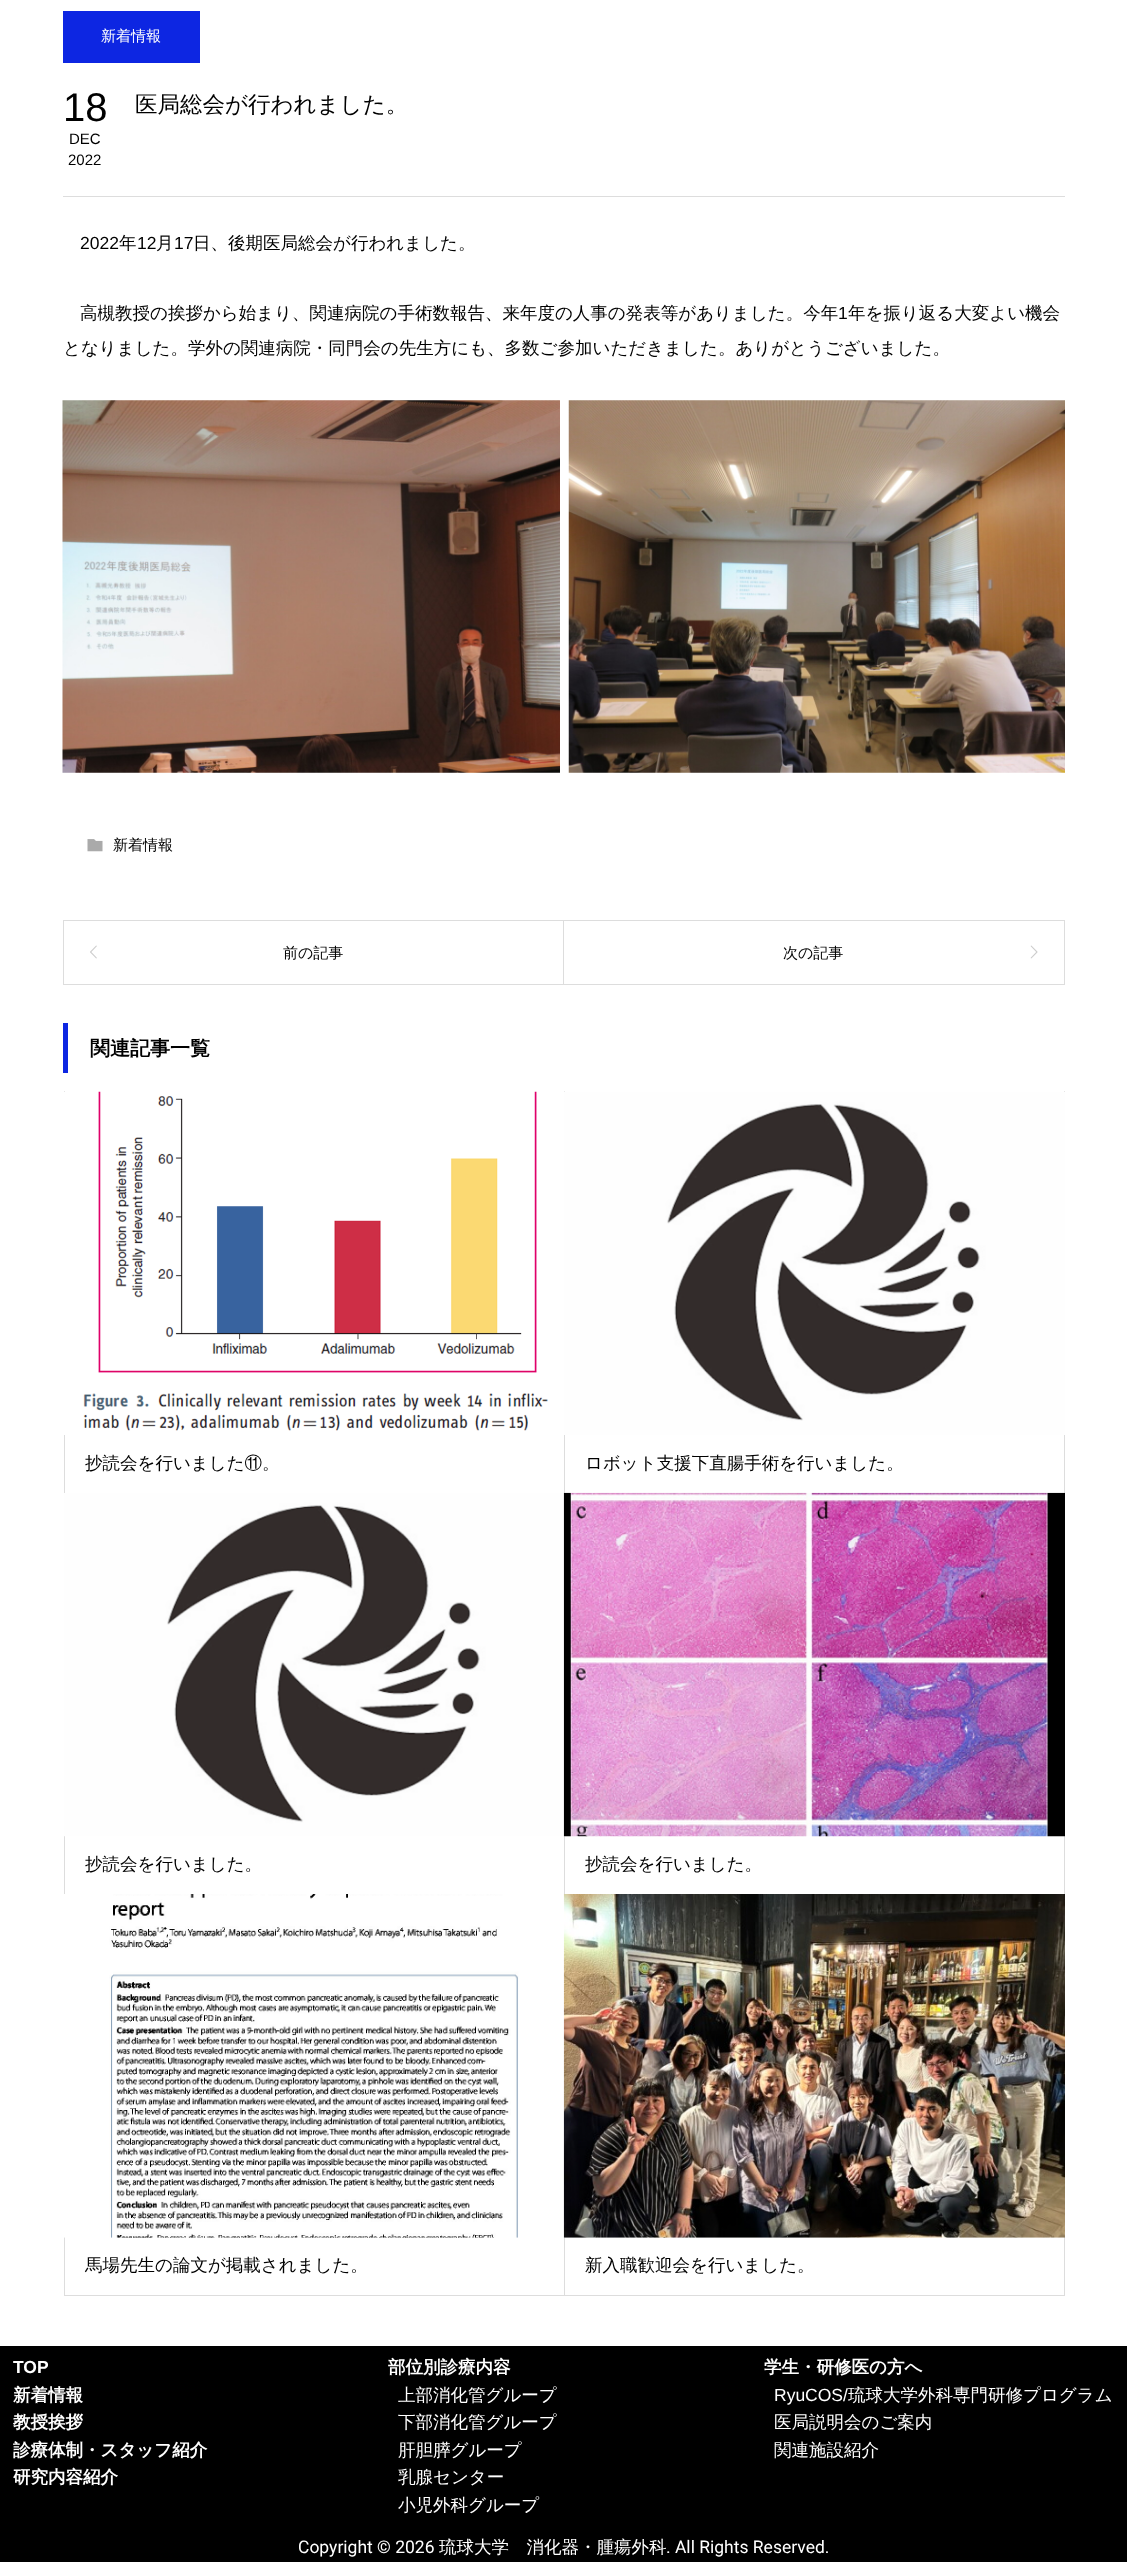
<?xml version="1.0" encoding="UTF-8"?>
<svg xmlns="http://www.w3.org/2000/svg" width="1127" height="2562">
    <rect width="100%" height="100%" fill="#FFFFFF"/>
    <rect x="63" y="11" width="137" height="52" fill="#0D26E2"/>
    <text x="101" y="41" font-family="WenQuanYi Zen Hei" font-size="15" font-weight="500" fill="#FFFFFF">新着情報</text>
    <text x="63" y="121" font-family="Liberation Sans" font-size="40" fill="#000000">18</text>
    <text x="69" y="144" font-family="Liberation Sans" font-size="15" fill="#000000">DEC</text>
    <text x="68" y="165" font-family="Liberation Sans" font-size="15" fill="#000000">2022</text>
    <text x="135" y="112" font-family="WenQuanYi Zen Hei" font-size="22.5" font-weight="500" fill="#000000">医局総会が行われました。</text>
    <rect x="63" y="196" width="1002" height="1" fill="#DDDDDD"/>
    <text x="80" y="249" font-family="Liberation Sans" font-size="17.5" fill="#000000">2022</text>
    <text x="119" y="249" font-family="WenQuanYi Zen Hei" font-size="17.5" font-weight="500" fill="#000000">年</text>
    <text x="137" y="249" font-family="Liberation Sans" font-size="17.5" fill="#000000">12</text>
    <text x="156" y="249" font-family="WenQuanYi Zen Hei" font-size="17.5" font-weight="500" fill="#000000">月</text>
    <text x="174" y="249" font-family="Liberation Sans" font-size="17.5" fill="#000000">17</text>
    <text x="193" y="249" font-family="WenQuanYi Zen Hei" font-size="17.5" font-weight="500" fill="#000000">日、後期医局総会が行われました。</text>
    <text x="80" y="319" font-family="WenQuanYi Zen Hei" font-size="17.5" font-weight="500" fill="#000000">高槻教授の挨拶から始まり、関連病院の手術数報告、来年度の人事の発表等がありました。今年</text>
    <text x="838" y="319" font-family="Liberation Sans" font-size="17.5" fill="#000000">1</text>
    <text x="848" y="319" font-family="WenQuanYi Zen Hei" font-size="17.5" font-weight="500" fill="#000000">年を振り返る大変よい機会</text>
    <text x="63" y="354" font-family="WenQuanYi Zen Hei" font-size="17.5" font-weight="500" fill="#000000">となりました。学外の関連病院・同門会の先生方にも、多数ご参加いただきました。ありがとうございました。</text>
    <image x="62" y="400" width="498" height="373" href="img_01.png"/>
    <image x="568" y="400" width="497" height="373" href="img_02.png"/>
    <image x="87" y="839" width="16" height="13" href="img_03.png"/>
    <text x="113" y="850" font-family="WenQuanYi Zen Hei" font-size="15" font-weight="500" fill="#000000">新着情報</text>
    <rect x="63.5" y="920.5" width="500" height="64" fill="none" stroke="#DDDDDD"/>
    <image x="90" y="945" width="7" height="14" href="img_04.png"/>
    <text x="283" y="958" font-family="WenQuanYi Zen Hei" font-size="15" font-weight="500" fill="#000000">前の記事</text>
    <rect x="564" y="920" width="501" height="1" fill="#DDDDDD"/>
    <rect x="1064" y="920" width="1" height="65" fill="#DDDDDD"/>
    <rect x="564" y="984" width="501" height="1" fill="#DDDDDD"/>
    <text x="783" y="958" font-family="WenQuanYi Zen Hei" font-size="15" font-weight="500" fill="#000000">次の記事</text>
    <image x="1030" y="945" width="8" height="14" href="img_05.png"/>
    <rect x="63" y="1023" width="5" height="50" fill="#0D26E2"/>
    <text x="90" y="1055" font-family="WenQuanYi Zen Hei" font-size="20" font-weight="700" fill="#000000">関連記事一覧</text>
    <rect x="64" y="1091" width="1" height="1205" fill="#DDDDDD"/>
    <rect x="564" y="1091" width="1" height="402" fill="#DDDDDD"/>
    <image x="64" y="1091" width="501" height="344" href="img_06.png"/>
    <text x="85" y="1469" font-family="WenQuanYi Zen Hei" font-size="17.5" font-weight="500" fill="#000000">抄読会を行いました⑪。</text>
    <rect x="1064" y="1091" width="1" height="402" fill="#DDDDDD"/>
    <image x="564" y="1091" width="501" height="344" href="img_07.png"/>
    <text x="585" y="1469" font-family="WenQuanYi Zen Hei" font-size="17.5" font-weight="500" fill="#000000">ロボット支援下直腸手術を行いました。</text>
    <rect x="564" y="1836" width="1" height="58" fill="#DDDDDD"/>
    <image x="64" y="1493" width="501" height="344" href="img_08.png"/>
    <text x="85" y="1870" font-family="WenQuanYi Zen Hei" font-size="17.5" font-weight="500" fill="#000000">抄読会を行いました。</text>
    <rect x="1064" y="1836" width="1" height="58" fill="#DDDDDD"/>
    <image x="563" y="1492" width="502" height="345" href="img_09.png"/>
    <text x="585" y="1870" font-family="WenQuanYi Zen Hei" font-size="17.5" font-weight="500" fill="#000000">抄読会を行いました。</text>
    <rect x="564" y="2237" width="1" height="59" fill="#DDDDDD"/>
    <rect x="65" y="2295" width="500" height="1" fill="#DDDDDD"/>
    <image x="64" y="1894" width="501" height="344" href="img_10.png"/>
    <text x="85" y="2271" font-family="WenQuanYi Zen Hei" font-size="17.5" font-weight="500" fill="#000000">馬場先生の論文が掲載されました。</text>
    <rect x="1064" y="2237" width="1" height="59" fill="#DDDDDD"/>
    <rect x="565" y="2295" width="500" height="1" fill="#DDDDDD"/>
    <image x="563" y="1894" width="502" height="344" href="img_11.png"/>
    <text x="585" y="2271" font-family="WenQuanYi Zen Hei" font-size="17.5" font-weight="500" fill="#000000">新入職歓迎会を行いました。</text>
    <rect x="0" y="2346" width="1127" height="216" fill="#000000"/>
    <text x="13" y="2373" font-family="Liberation Sans" font-size="17.5" font-weight="700" fill="#FFFFFF">TOP</text>
    <text font-family="WenQuanYi Zen Hei" font-size="17.5" font-weight="700" fill="#FFFFFF">
        <tspan x="13" y="2401">新着情報</tspan>
        <tspan x="13" y="2428">教授挨拶</tspan>
        <tspan x="13" y="2456">診療体制・スタッフ紹介</tspan>
        <tspan x="13" y="2483">研究内容紹介</tspan>
    </text>
    <text x="388" y="2373" font-family="WenQuanYi Zen Hei" font-size="17.5" font-weight="700" fill="#FFFFFF">部位別診療内容</text>
    <text font-family="WenQuanYi Zen Hei" font-size="17.5" font-weight="500" fill="#FFFFFF">
        <tspan x="398" y="2401">上部消化管グループ</tspan>
        <tspan x="398" y="2428">下部消化管グループ</tspan>
        <tspan x="398" y="2456">肝胆膵グループ</tspan>
        <tspan x="398" y="2483">乳腺センター</tspan>
        <tspan x="398" y="2511">小児外科グループ</tspan>
    </text>
    <text x="764" y="2373" font-family="WenQuanYi Zen Hei" font-size="17.5" font-weight="700" fill="#FFFFFF">学生・研修医の方へ</text>
    <text x="774" y="2401" font-family="Liberation Sans" font-size="17.5" fill="#FFFFFF">RyuCOS/</text>
    <text x="848" y="2401" font-family="WenQuanYi Zen Hei" font-size="17.5" font-weight="500" fill="#FFFFFF">琉球大学外科専門研修プログラム</text>
    <text font-family="WenQuanYi Zen Hei" font-size="17.5" font-weight="500" fill="#FFFFFF">
        <tspan x="774" y="2428">医局説明会のご案内</tspan>
        <tspan x="774" y="2456">関連施設紹介</tspan>
    </text>
    <text x="298" y="2553" font-family="Roboto" font-size="17.5" fill="#FFFFFF">Copyright © 2026</text>
    <text x="439" y="2553" font-family="WenQuanYi Zen Hei" font-size="17.5" font-weight="500" fill="#FFFFFF">琉球大学　消化器・腫瘍外科</text>
    <text x="666" y="2553" font-family="Roboto" font-size="17.5" fill="#FFFFFF">. All Rights Reserved.</text>
</svg>
